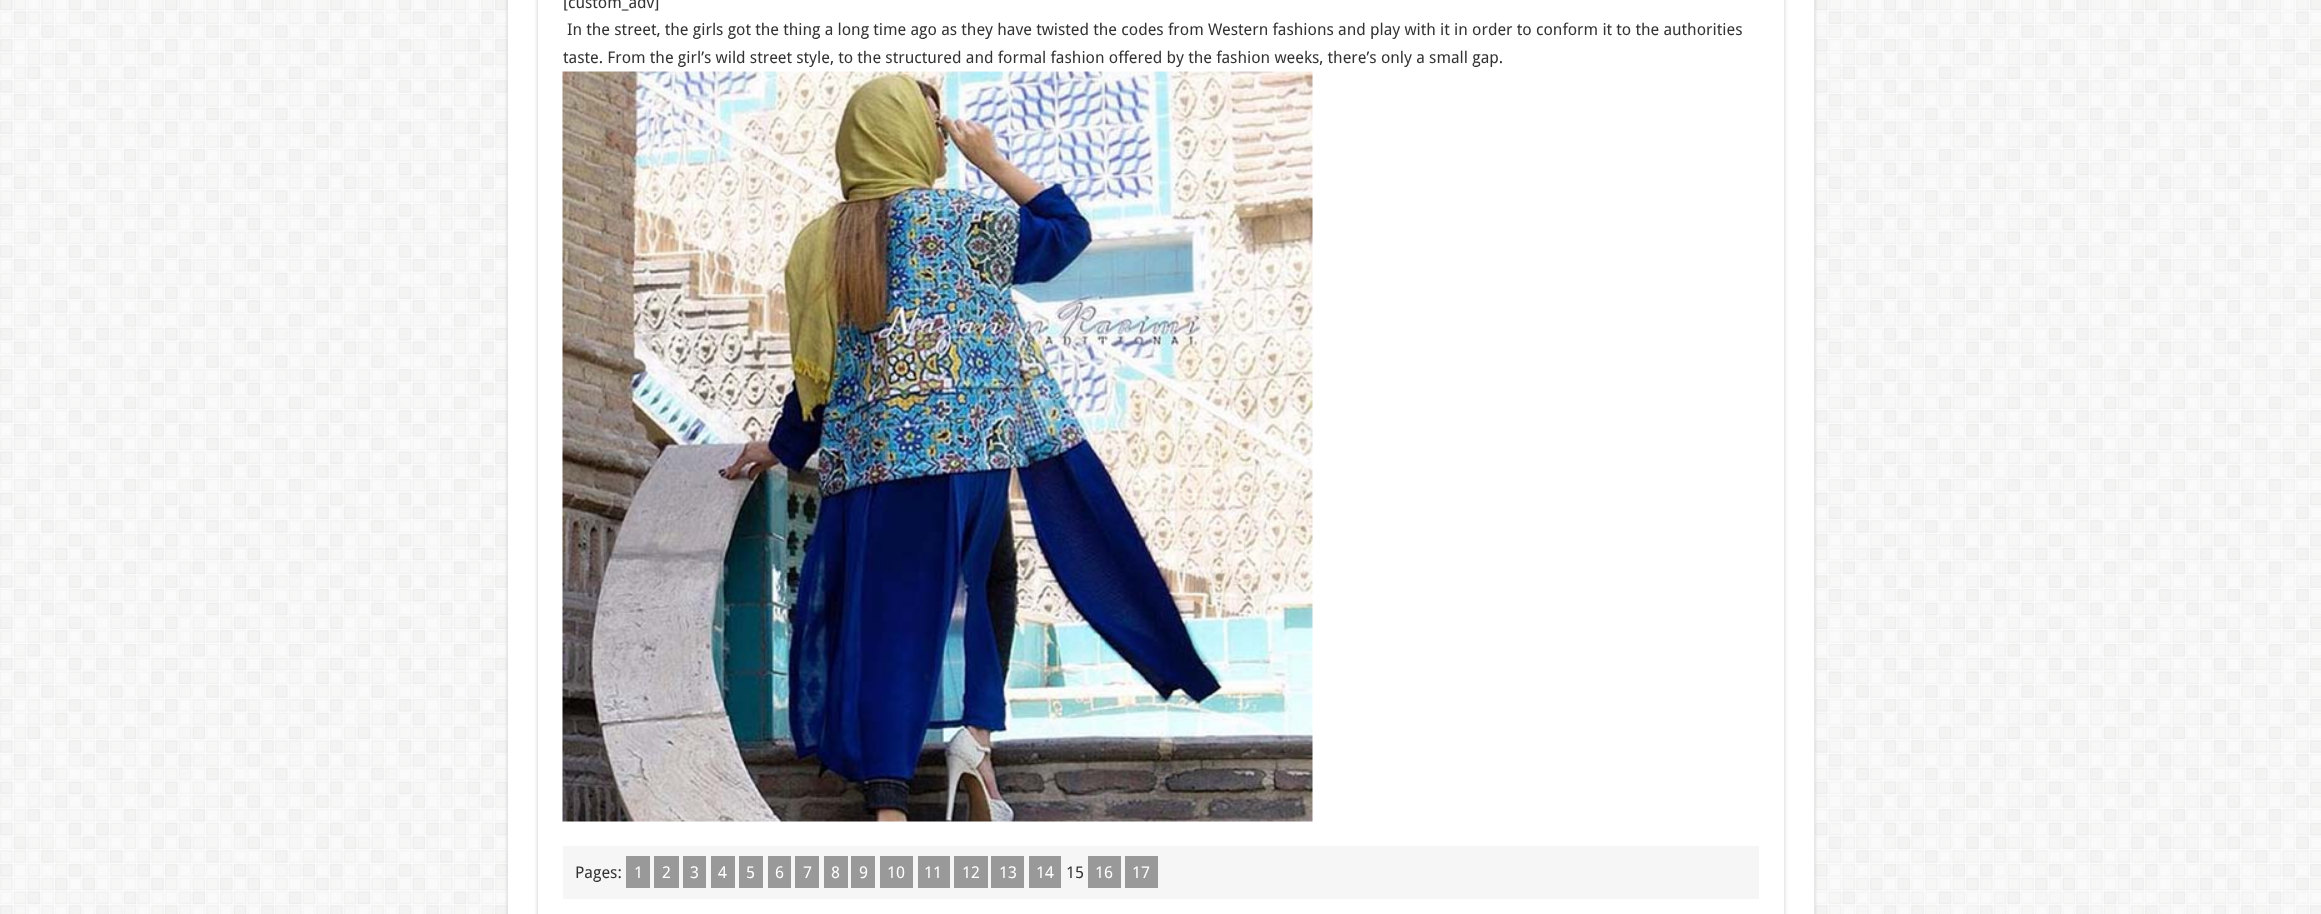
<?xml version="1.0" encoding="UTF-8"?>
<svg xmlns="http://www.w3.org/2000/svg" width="2321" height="914">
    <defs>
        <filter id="blur1" x="-50%" y="-200%" width="200%" height="500%"><feGaussianBlur stdDeviation="2"/></filter>
    </defs>
    <rect width="100%" height="100%" fill="#FFFFFF"/>
    <image x="0" y="0" width="2321" height="914" href="img_01.png"/>
    <rect x="508" y="-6" width="1306" height="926" fill="#CACACA" filter="url(#blur1)"/>
    <rect x="508" y="0" width="1306" height="914" fill="#FFFFFF"/>
    <rect x="538" y="-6" width="1246" height="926" fill="#CACACA" filter="url(#blur1)"/>
    <rect x="538" y="0" width="1246" height="914" fill="#FFFFFF"/>
    <text x="563" y="8" font-family="Droid Sans" font-size="16.25" fill="#333333">[custom_adv]</text>
    <text x="567" y="35" font-family="Droid Sans" font-size="16.25" fill="#333333">In the street, the girls got the thing a long time ago as they have twisted the codes from Western fashions and play with it in order to conform it to the authorities</text>
    <text x="563" y="63" font-family="Droid Sans" font-size="16.25" fill="#333333">taste. From the girl’s wild street style, to the structured and formal fashion offered by the fashion weeks, there’s only a small gap.</text>
    <image x="562" y="71" width="751" height="751" href="img_02.png"/>
    <rect x="563" y="846" width="1196" height="53" fill="#F6F6F6"/>
    <text x="575" y="878" font-family="Droid Sans" font-size="16.25" fill="#333333">Pages:</text>
    <rect x="626" y="856" width="24" height="32" fill="#999999"/>
    <text x="634" y="878" font-family="Droid Sans" font-size="16.25" fill="#FFFFFF">1</text>
    <rect x="654" y="856" width="25" height="32" fill="#999999"/>
    <text x="662" y="878" font-family="Droid Sans" font-size="16.25" fill="#FFFFFF">2</text>
    <rect x="683" y="856" width="23" height="32" fill="#999999"/>
    <text x="690" y="878" font-family="Droid Sans" font-size="16.25" fill="#FFFFFF">3</text>
    <rect x="711" y="856" width="24" height="32" fill="#999999"/>
    <text x="718" y="878" font-family="Droid Sans" font-size="16.25" fill="#FFFFFF">4</text>
    <rect x="739" y="856" width="24" height="32" fill="#999999"/>
    <text x="746" y="878" font-family="Droid Sans" font-size="16.25" fill="#FFFFFF">5</text>
    <rect x="768" y="856" width="23" height="32" fill="#999999"/>
    <text x="775" y="878" font-family="Droid Sans" font-size="16.25" fill="#FFFFFF">6</text>
    <rect x="795" y="856" width="24" height="32" fill="#999999"/>
    <text x="803" y="878" font-family="Droid Sans" font-size="16.25" fill="#FFFFFF">7</text>
    <rect x="824" y="856" width="24" height="32" fill="#999999"/>
    <text x="831" y="878" font-family="Droid Sans" font-size="16.25" fill="#FFFFFF">8</text>
    <rect x="851" y="856" width="24" height="32" fill="#999999"/>
    <text x="859" y="878" font-family="Droid Sans" font-size="16.25" fill="#FFFFFF">9</text>
    <rect x="880" y="856" width="33" height="32" fill="#999999"/>
    <text x="887" y="878" font-family="Droid Sans" font-size="16.25" fill="#FFFFFF">10</text>
    <rect x="918" y="856" width="32" height="32" fill="#999999"/>
    <text x="924" y="878" font-family="Droid Sans" font-size="16.25" fill="#FFFFFF">11</text>
    <rect x="954" y="856" width="34" height="32" fill="#999999"/>
    <text x="962" y="878" font-family="Droid Sans" font-size="16.25" fill="#FFFFFF">12</text>
    <rect x="991" y="856" width="33" height="32" fill="#999999"/>
    <text x="999" y="878" font-family="Droid Sans" font-size="16.25" fill="#FFFFFF">13</text>
    <rect x="1029" y="856" width="32" height="32" fill="#999999"/>
    <text x="1036" y="878" font-family="Droid Sans" font-size="16.25" fill="#FFFFFF">14</text>
    <text x="1066" y="878" font-family="Droid Sans" font-size="16.25" fill="#333333">15</text>
    <rect x="1088" y="856" width="33" height="32" fill="#999999"/>
    <text x="1095" y="878" font-family="Droid Sans" font-size="16.25" fill="#FFFFFF">16</text>
    <rect x="1125" y="856" width="33" height="32" fill="#999999"/>
    <text x="1132" y="878" font-family="Droid Sans" font-size="16.25" fill="#FFFFFF">17</text>
</svg>
